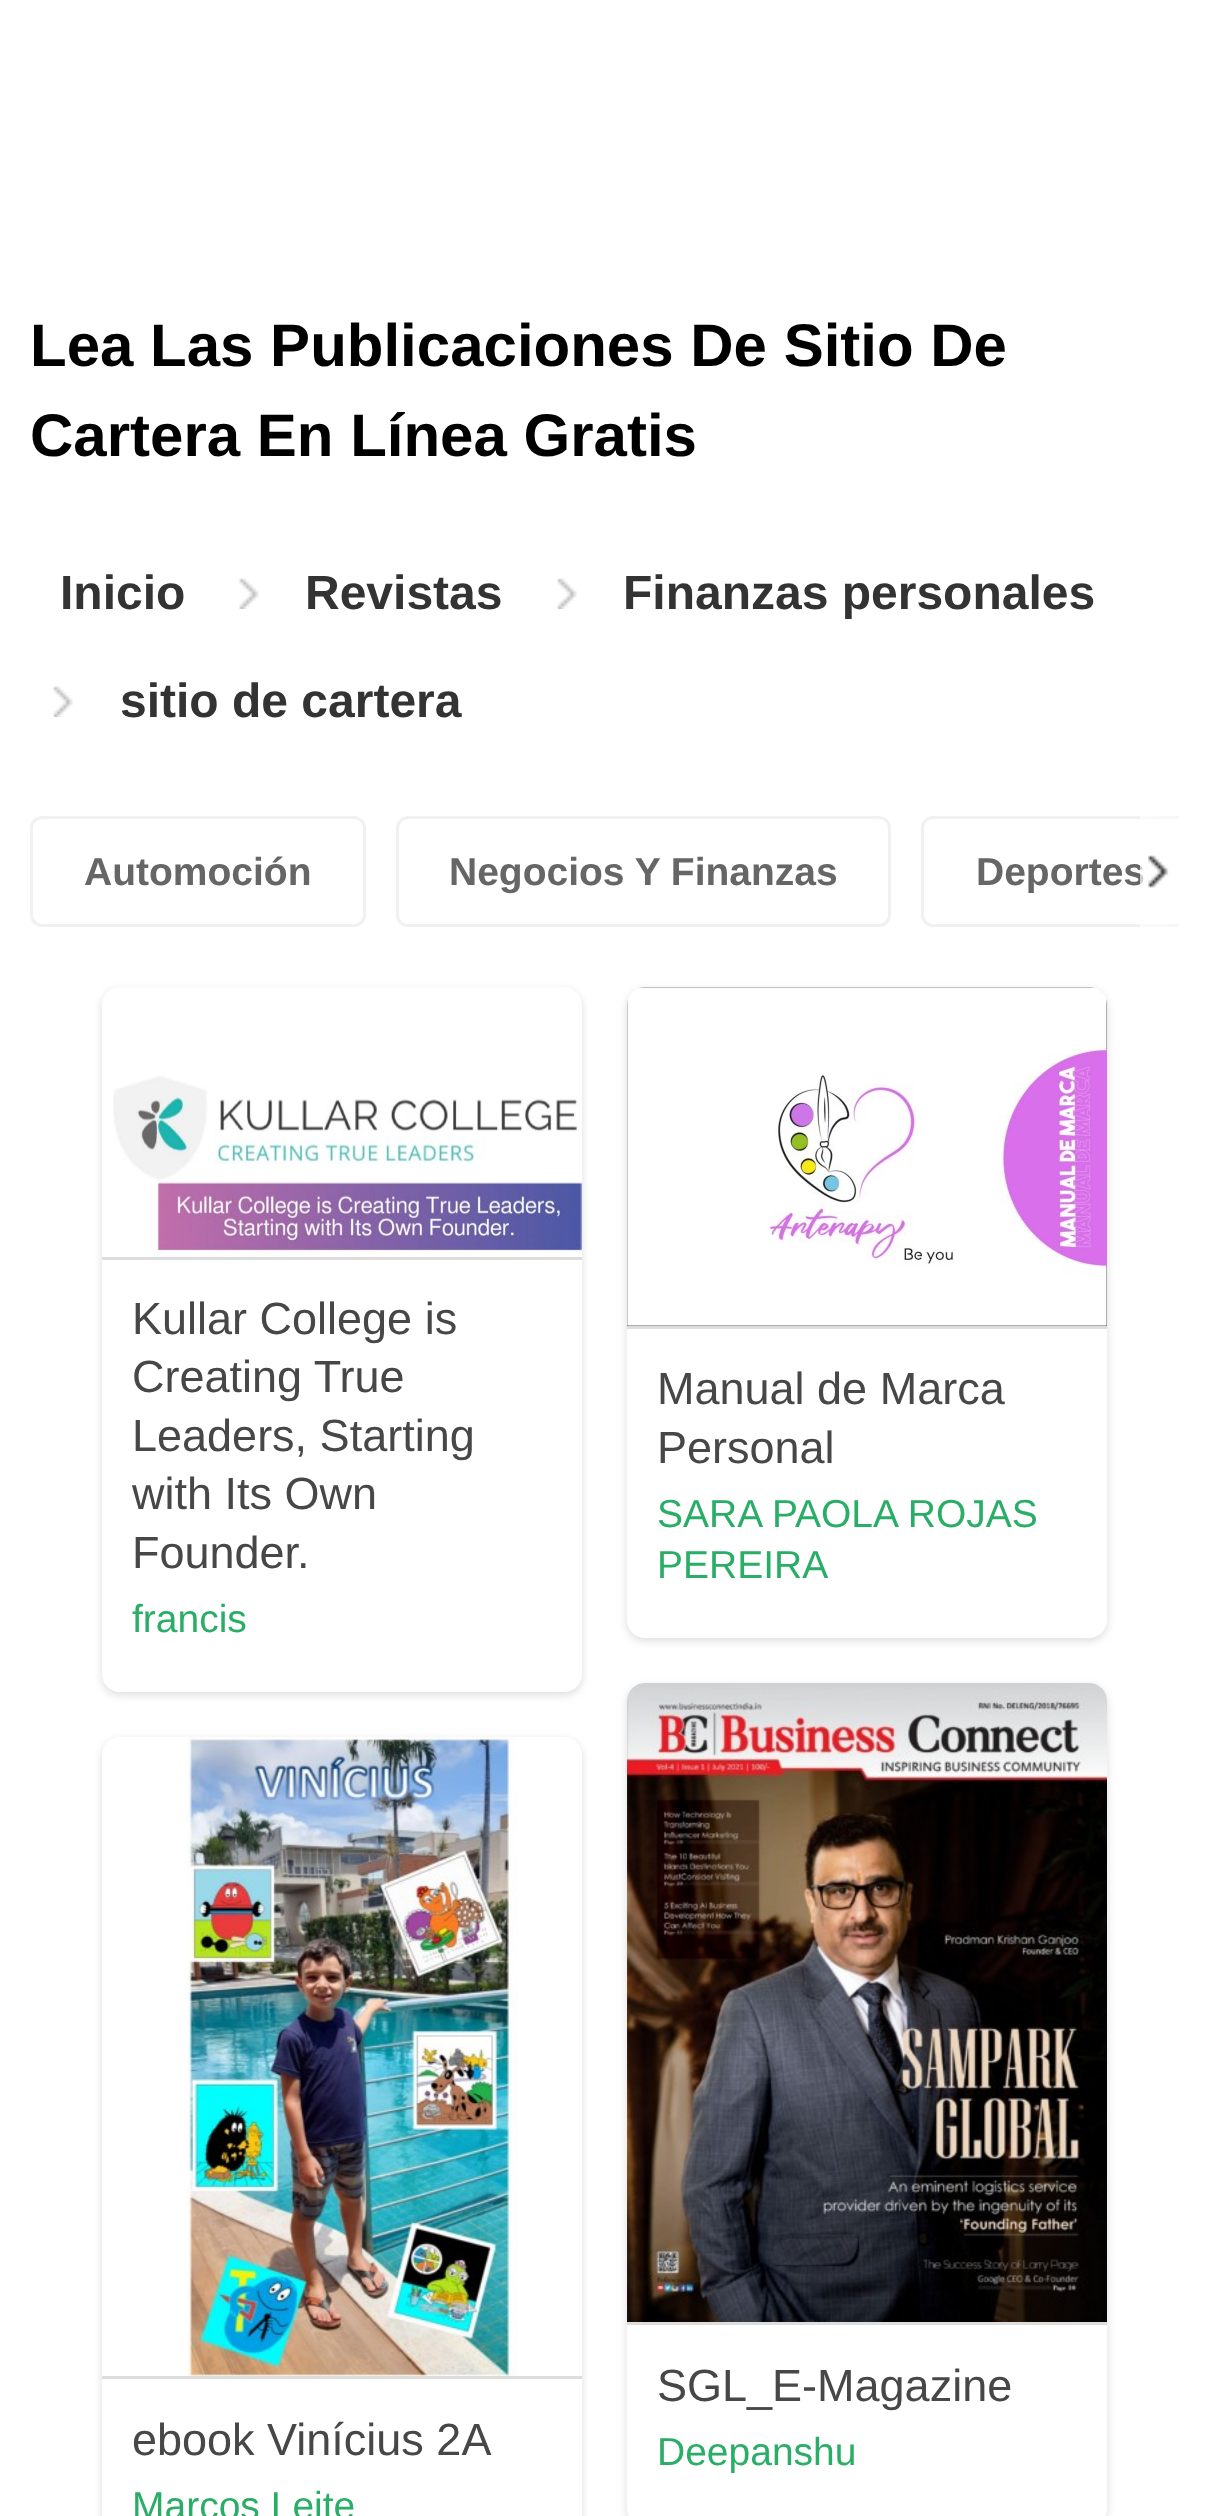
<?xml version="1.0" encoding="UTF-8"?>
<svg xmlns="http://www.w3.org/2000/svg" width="1207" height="2516">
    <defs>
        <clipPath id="clip1"><rect x="30" y="816" width="1149" height="111"/></clipPath>
        <linearGradient id="g1" gradientUnits="userSpaceOnUse" x1="1140" y1="872" x2="1179" y2="872"><stop offset="0" stop-color="#FFFFFF" stop-opacity="0.7"/><stop offset="1" stop-color="#FFFFFF" stop-opacity="0.4"/></linearGradient>
        <clipPath id="clip2"><path d="M 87 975 H 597 V 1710 H 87 Z M 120 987 H 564 C 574 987 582 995 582 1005 V 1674 C 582 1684 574 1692 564 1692 H 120 C 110 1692 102 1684 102 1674 V 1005 C 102 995 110 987 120 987 Z" clip-rule="evenodd"/></clipPath>
        <filter id="blur1" x="-50%" y="-200%" width="200%" height="500%"><feGaussianBlur stdDeviation="4.5"/></filter>
        <clipPath id="clip3"><path d="M 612 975 H 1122 V 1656 H 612 Z M 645 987 H 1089 C 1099 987 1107 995 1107 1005 V 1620 C 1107 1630 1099 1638 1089 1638 H 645 C 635 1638 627 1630 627 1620 V 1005 C 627 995 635 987 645 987 Z" clip-rule="evenodd"/></clipPath>
        <clipPath id="clip4"><path d="M 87 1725 H 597 V 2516 H 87 Z M 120 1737 H 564 C 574 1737 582 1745 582 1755 V 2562 C 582 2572 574 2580 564 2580 H 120 C 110 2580 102 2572 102 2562 V 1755 C 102 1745 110 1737 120 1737 Z" clip-rule="evenodd"/></clipPath>
        <clipPath id="clip5"><path d="M 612 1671 H 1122 V 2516 H 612 Z M 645 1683 H 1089 C 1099 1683 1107 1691 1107 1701 V 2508 C 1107 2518 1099 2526 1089 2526 H 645 C 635 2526 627 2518 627 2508 V 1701 C 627 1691 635 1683 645 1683 Z" clip-rule="evenodd"/></clipPath>
    </defs>
    <rect width="100%" height="100%" fill="#FFFFFF"/>
    <text font-family="Liberation Sans" font-size="60" font-weight="700" fill="#000000">
        <tspan x="30" y="366">Lea Las Publicaciones De Sitio De</tspan>
        <tspan x="30" y="456">Cartera En Línea Gratis</tspan>
    </text>
    <text x="60" y="609" font-family="Liberation Sans" font-size="48" font-weight="700" fill="#333333">Inicio</text>
    <image x="239" y="578" width="20" height="31" href="img_01.png"/>
    <text x="305" y="609" font-family="Liberation Sans" font-size="48" font-weight="700" fill="#333333">Revistas</text>
    <image x="557" y="578" width="20" height="31" href="img_01.png"/>
    <text x="623" y="609" font-family="Liberation Sans" font-size="48" font-weight="700" fill="#333333">Finanzas personales</text>
    <image x="53" y="686" width="20" height="31" href="img_01.png"/>
    <text x="120" y="717" font-family="Liberation Sans" font-size="48" font-weight="700" fill="#333333">sitio de cartera</text>
    <rect x="31.5" y="817.5" width="333" height="108" rx="10.5" fill="none" stroke="#F1F1F1" stroke-width="3"/>
    <text x="84" y="885" font-family="Liberation Sans" font-size="39" font-weight="700" fill="#666666">Automoción</text>
    <rect x="397.5" y="817.5" width="492" height="108" rx="10.5" fill="none" stroke="#F1F1F1" stroke-width="3"/>
    <text x="449" y="885" font-family="Liberation Sans" font-size="39" font-weight="700" fill="#666666">Negocios Y Finanzas</text>
    <g clip-path="url(#clip1)">
        <rect x="922.5" y="817.5" width="276" height="108" rx="10.5" fill="none" stroke="#F1F1F1" stroke-width="3"/>
    </g>
    <text x="976" y="885" font-family="Liberation Sans" font-size="39" font-weight="700" fill="#666666">Deportes</text>
    <rect x="1140" y="816" width="39" height="111" fill="url(#g1)"/>
    <image x="1148" y="855" width="21" height="33" href="img_02.png"/>
    <g clip-path="url(#clip2)">
        <rect x="102" y="990" width="480" height="705" rx="18" fill="#DDDDDD" filter="url(#blur1)"/>
    </g>
    <image x="113" y="1076" width="469" height="181" href="img_03.png"/>
    <rect x="102" y="1257" width="480" height="3" fill="#DDDDDD"/>
    <text font-family="Liberation Sans" font-size="45" fill="#474747">
        <tspan x="132" y="1334">Kullar College is</tspan>
        <tspan x="132" y="1392">Creating True</tspan>
        <tspan x="132" y="1451">Leaders, Starting</tspan>
        <tspan x="132" y="1509">with Its Own</tspan>
        <tspan x="132" y="1568">Founder.</tspan>
    </text>
    <text x="132" y="1632" font-family="Liberation Sans" font-size="39" fill="#2AAE67">francis</text>
    <g clip-path="url(#clip3)">
        <rect x="627" y="990" width="480" height="651" rx="18" fill="#DDDDDD" filter="url(#blur1)"/>
    </g>
    <image x="627" y="987" width="480" height="339" href="img_04.png"/>
    <rect x="627" y="1326" width="480" height="3" fill="#DDDDDD"/>
    <text font-family="Liberation Sans" font-size="45" fill="#474747">
        <tspan x="657" y="1404">Manual de Marca</tspan>
        <tspan x="657" y="1463">Personal</tspan>
    </text>
    <text font-family="Liberation Sans" font-size="39" fill="#2AAE67">
        <tspan x="657" y="1527">SARA PAOLA ROJAS</tspan>
        <tspan x="657" y="1578">PEREIRA</tspan>
    </text>
    <g clip-path="url(#clip4)">
        <rect x="102" y="1740" width="480" height="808" rx="18" fill="#DDDDDD" filter="url(#blur1)"/>
    </g>
    <image x="186" y="1737" width="332" height="639" href="img_05.png"/>
    <rect x="102" y="2376" width="480" height="3" fill="#DDDDDD"/>
    <text x="132" y="2455" font-family="Liberation Sans" font-size="45" fill="#474747">ebook Vinícius 2A</text>
    <text x="132" y="2519" font-family="Liberation Sans" font-size="39" fill="#2AAE67">Marcos Leite</text>
    <g clip-path="url(#clip5)">
        <rect x="627" y="1686" width="480" height="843" rx="18" fill="#DDDDDD" filter="url(#blur1)"/>
    </g>
    <image x="627" y="1683" width="480" height="639" href="img_06.png"/>
    <rect x="627" y="2322" width="480" height="3" fill="#DDDDDD"/>
    <text x="657" y="2401" font-family="Liberation Sans" font-size="45" fill="#474747">SGL_E-Magazine</text>
    <text x="657" y="2465" font-family="Liberation Sans" font-size="39" fill="#2AAE67">Deepanshu</text>
</svg>
